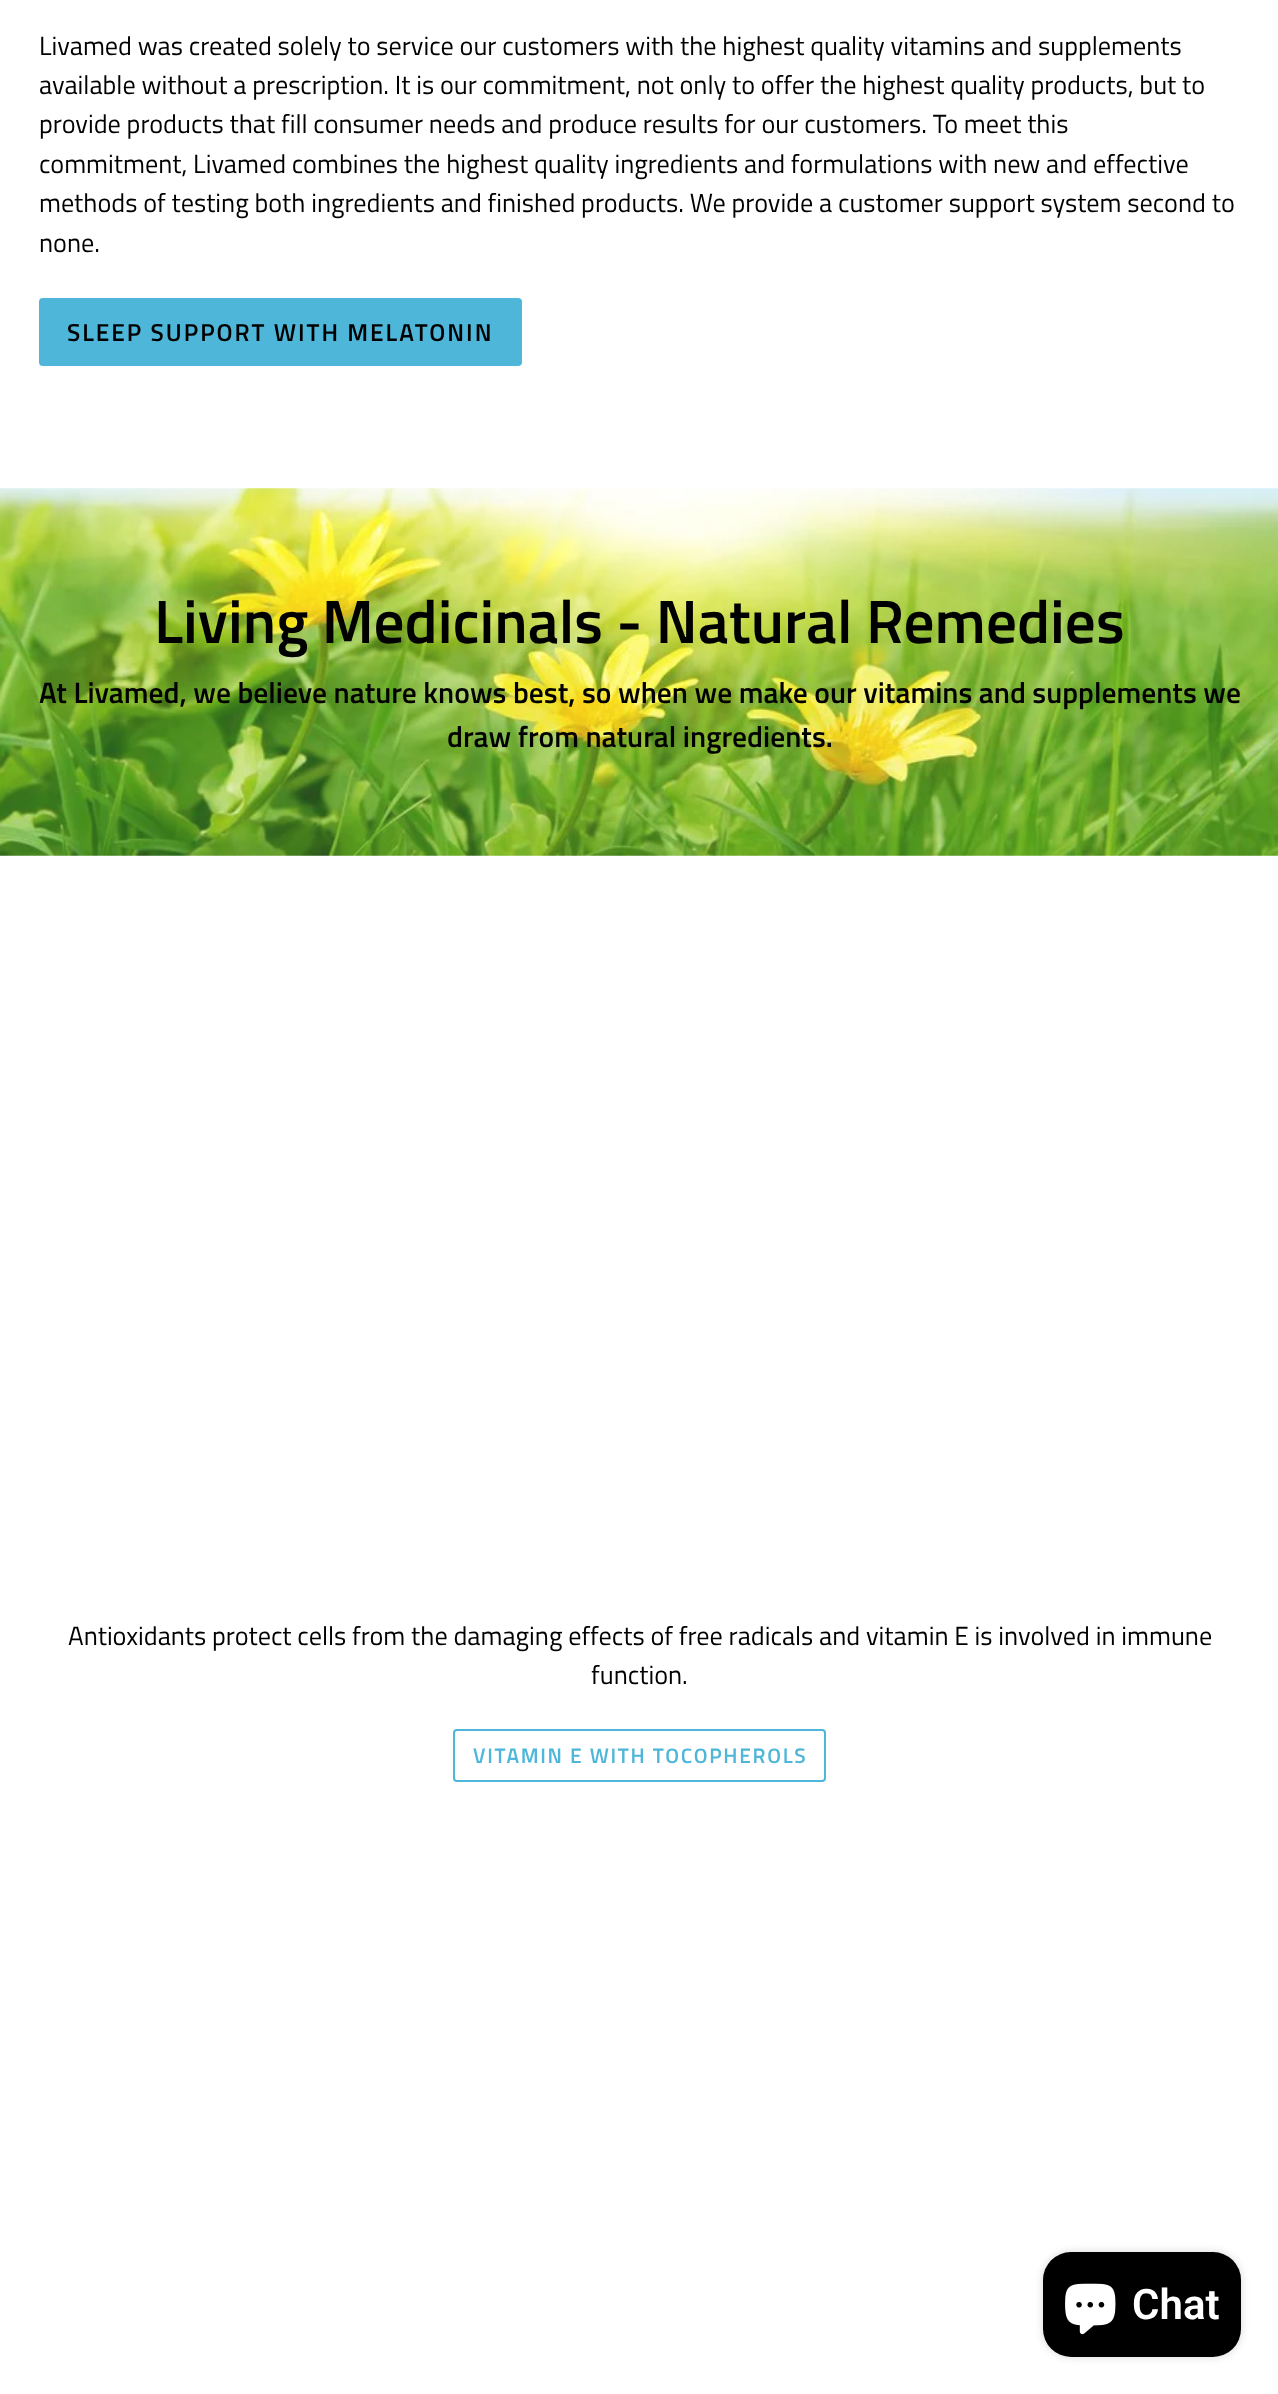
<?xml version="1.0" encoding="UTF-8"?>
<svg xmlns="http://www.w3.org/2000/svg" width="1278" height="2394">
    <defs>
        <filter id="blur1" x="-50%" y="-200%" width="200%" height="500%"><feGaussianBlur stdDeviation="4.5"/></filter>
    </defs>
    <rect width="100%" height="100%" fill="#FFFFFF"/>
    <text font-family="Titillium Web" font-size="26.25" fill="#000000">
        <tspan x="39" y="55">Livamed was created solely to service our customers with the highest quality vitamins and supplements</tspan>
        <tspan x="39" y="94">available without a prescription. It is our commitment, not only to offer the highest quality products, but to</tspan>
        <tspan x="39" y="133">provide products that fill consumer needs and produce results for our customers. To meet this</tspan>
        <tspan x="39" y="173">commitment, Livamed combines the highest quality ingredients and formulations with new and effective</tspan>
        <tspan x="39" y="212">methods of testing both ingredients and finished products. We provide a customer support system second to</tspan>
        <tspan x="39" y="252">none.</tspan>
    </text>
    <rect x="39" y="298" width="483" height="68" rx="4" fill="#4DB6D9"/>
    <text x="67" y="341" font-family="Titillium Web" font-size="24.5" font-weight="600" letter-spacing="1.95" fill="#000000">SLEEP SUPPORT WITH MELATONIN</text>
    <image x="0" y="488" width="1278" height="368" href="img_01.png"/>
    <text x="154" y="643" font-family="Titillium Web" font-size="61.25" font-weight="600" fill="#000000">Living Medicinals - Natural Remedies</text>
    <text x="39" y="703" font-family="Titillium Web" font-size="29.55" font-weight="600" fill="#000000">At Livamed, we believe nature knows best, so when we make our vitamins and supplements we</text>
    <text x="447" y="747" font-family="Titillium Web" font-size="29.55" font-weight="600" fill="#000000">draw from natural ingredients.</text>
    <text x="68" y="1645" font-family="Titillium Web" font-size="26.25" fill="#000000">Antioxidants protect cells from the damaging effects of free radicals and vitamin E is involved in immune</text>
    <text x="591" y="1684" font-family="Titillium Web" font-size="26.25" fill="#000000">function.</text>
    <rect x="454" y="1730" width="371" height="51" rx="3" fill="none" stroke="#4DB6D9" stroke-width="2"/>
    <text x="473" y="1763" font-family="Titillium Web" font-size="21" font-weight="600" letter-spacing="1.7" fill="#4DB6D9">VITAMIN E WITH TOCOPHEROLS</text>
    <rect x="1043" y="2252" width="198" height="105" rx="28" fill="#000000" fill-opacity="0.15" filter="url(#blur1)"/>
    <rect x="1043" y="2252" width="198" height="105" rx="28" fill="#000000"/>
    <image x="1065" y="2283" width="51" height="52" href="img_02.png"/>
    <text x="1132" y="2319" font-family="Roboto" font-size="42" font-weight="600" fill="#FFFFFF">Chat</text>
</svg>
